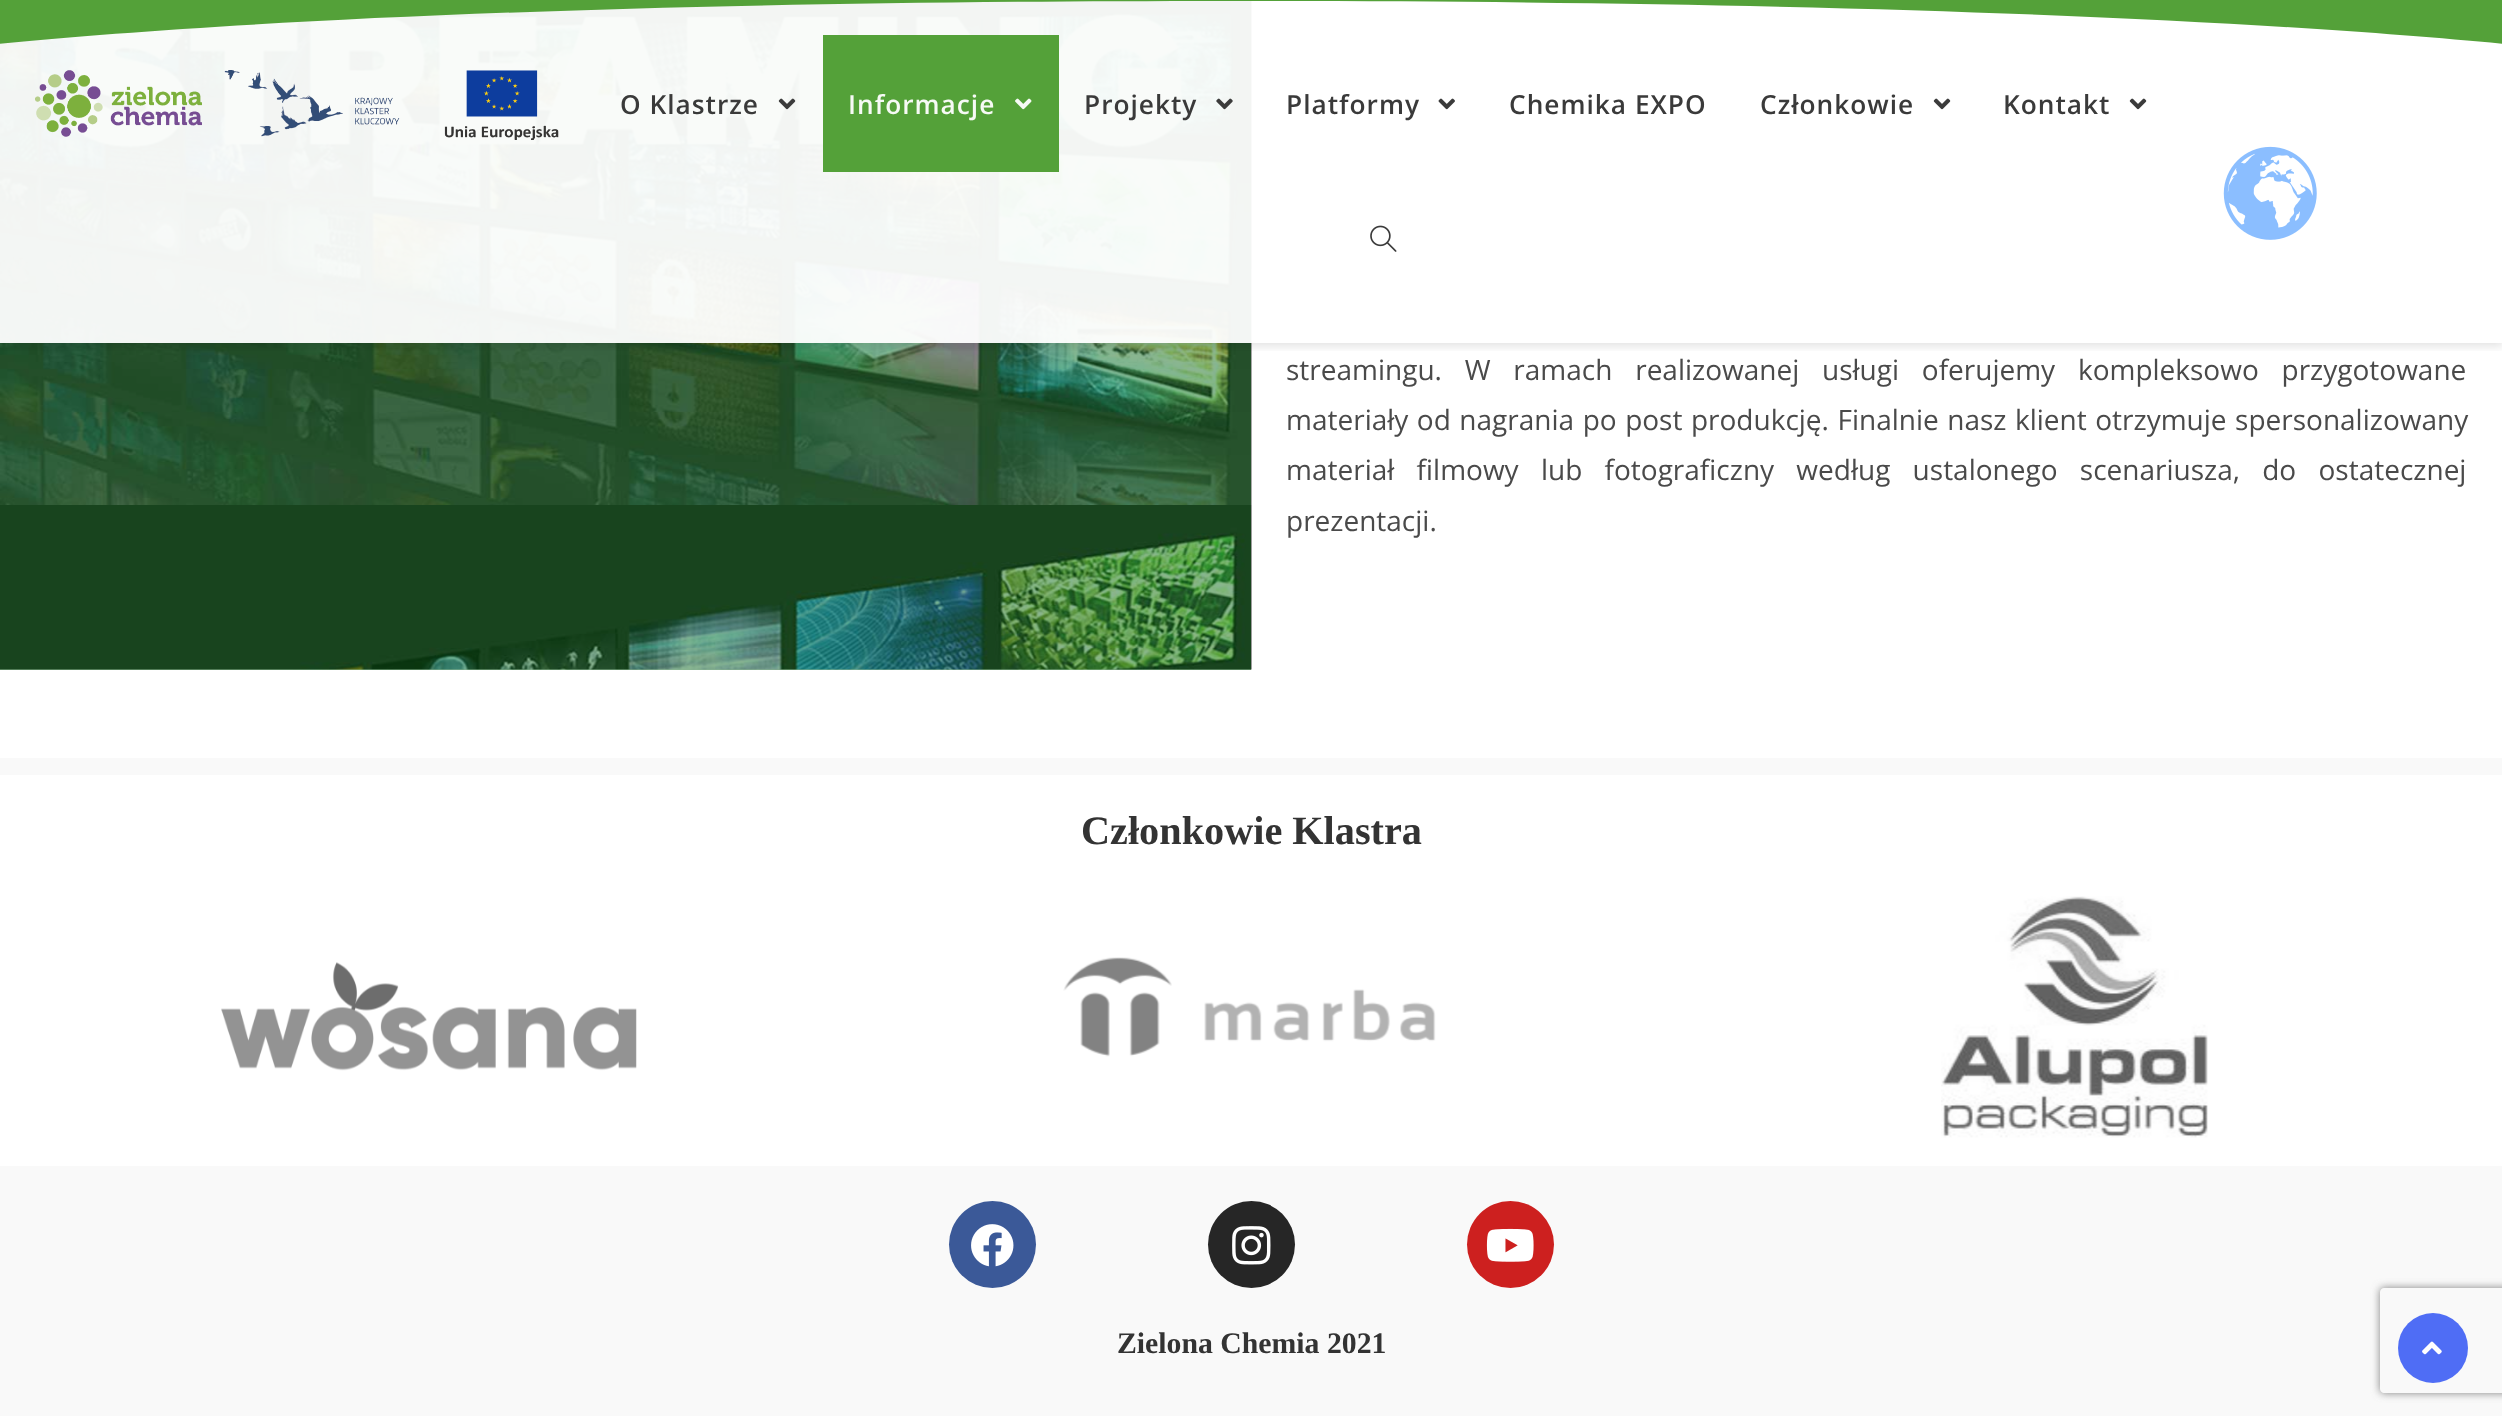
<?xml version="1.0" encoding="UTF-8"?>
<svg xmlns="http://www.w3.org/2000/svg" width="2502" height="1416">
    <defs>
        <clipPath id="clip1"><rect x="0" y="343" width="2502" height="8"/></clipPath>
        <filter id="blur1" x="-50%" y="-200%" width="200%" height="500%"><feGaussianBlur stdDeviation="4.5"/></filter>
        <clipPath id="clip2"><path d="M 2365 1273 H 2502 V 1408 H 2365 Z M 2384 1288 H 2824 C 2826 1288 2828 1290 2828 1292 V 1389 C 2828 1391 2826 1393 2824 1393 H 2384 C 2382 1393 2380 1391 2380 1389 V 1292 C 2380 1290 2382 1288 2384 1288 Z" clip-rule="evenodd"/></clipPath>
    </defs>
    <rect width="100%" height="100%" fill="#FFFFFF"/>
    <rect x="0" y="669" width="1251" height="1" fill="#8AB690"/>
    <image x="0" y="0" width="1252" height="670" href="img_09.png"/>
    <g clip-path="url(#clip1)">
        <rect x="0" y="4" width="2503" height="343" fill="#000000" fill-opacity="0.1" filter="url(#blur1)"/>
    </g>
    <rect x="0" y="0" width="1252" height="343" fill="#FFFFFF" fill-opacity="0.95"/>
    <path d="M 1251 1 C 2373 1 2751 68 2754 86 V -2 H -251 V 85 C -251 69 129 0 1251 1 Z" fill="#4B9C2E" fill-opacity="0.95"/>
    <image x="35" y="70" width="524" height="70" href="img_01.png"/>
    <text x="620" y="114" font-family="Open Sans" font-size="26.25" font-weight="600" letter-spacing="1" fill="#3A3A3A">O Klastrze</text>
    <image x="778" y="98" width="18" height="12" href="img_02.png"/>
    <rect x="823" y="35" width="236" height="137" fill="#4B9C2E" fill-opacity="0.95"/>
    <text x="848" y="114" font-family="Open Sans" font-size="26.25" font-weight="600" letter-spacing="1" fill="#F6FAF5">Informacje</text>
    <image x="1015" y="98" width="17" height="12" href="img_03.png"/>
    <text x="1084" y="114" font-family="Open Sans" font-size="26.25" font-weight="600" letter-spacing="1" fill="#3A3A3A">Projekty</text>
    <image x="1216" y="98" width="17" height="12" href="img_04.png"/>
    <text x="1286" y="114" font-family="Open Sans" font-size="26.25" font-weight="600" letter-spacing="1" fill="#3A3A3A">Platformy</text>
    <image x="1438" y="98" width="17" height="12" href="img_05.png"/>
    <text x="1509" y="114" font-family="Open Sans" font-size="26.25" font-weight="600" letter-spacing="1" fill="#3A3A3A">Chemika EXPO</text>
    <text x="1760" y="114" font-family="Open Sans" font-size="26.25" font-weight="600" letter-spacing="1" fill="#3A3A3A">Członkowie</text>
    <image x="1933" y="98" width="18" height="12" href="img_06.png"/>
    <text x="2003" y="114" font-family="Open Sans" font-size="26.25" font-weight="600" letter-spacing="1" fill="#3A3A3A">Kontakt</text>
    <image x="2129" y="98" width="18" height="12" href="img_06.png"/>
    <image x="1370" y="225" width="27" height="27" href="img_07.png"/>
    <image x="2223" y="146" width="94" height="94" href="img_08.png"/>
    <text font-family="Open Sans" font-size="28" fill="#4A4A4A">
        <tspan x="1286" y="380" word-spacing="15.5">streamingu. W ramach realizowanej usługi oferujemy kompleksowo przygotowane</tspan>
        <tspan x="1286" y="430" word-spacing="1.25">materiały od nagrania po post produkcję. Finalnie nasz klient otrzymuje spersonalizowany</tspan>
        <tspan x="1286" y="480" word-spacing="15">materiał filmowy lub fotograficzny według ustalonego scenariusza, do ostatecznej</tspan>
        <tspan x="1286" y="531">prezentacji.</tspan>
    </text>
    <rect x="0" y="758" width="2502" height="658" fill="#F9F9F9"/>
    <rect x="0" y="775" width="2502" height="391" fill="#FFFFFF"/>
    <text x="1081" y="844" font-family="Liberation Serif" font-size="40.25" font-weight="700" fill="#333333">Członkowie Klastra</text>
    <image x="221" y="962" width="416" height="109" href="img_10.png"/>
    <image x="1063" y="957" width="373" height="100" href="img_11.png"/>
    <image x="1941" y="896" width="267" height="242" href="img_12.png"/>
    <circle cx="992.5" cy="1244.5" r="43.5" fill="#3B5998"/>
    <image x="971" y="1224" width="43" height="43" href="img_13.png"/>
    <circle cx="1251.5" cy="1244.5" r="43.5" fill="#262626"/>
    <image x="1232" y="1226" width="39" height="39" href="img_14.png"/>
    <circle cx="1510.5" cy="1244.5" r="43.5" fill="#CD201F"/>
    <image x="1486" y="1228" width="48" height="34" href="img_15.png"/>
    <text x="1117" y="1353" font-family="Liberation Serif" font-size="29.75" font-weight="700" fill="#333333">Zielona Chemia 2021</text>
    <g clip-path="url(#clip2)">
        <rect x="2380" y="1288" width="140" height="105" rx="4" fill="#808080" filter="url(#blur1)"/>
    </g>
    <circle cx="2433" cy="1348" r="35" fill="#4F6DF5"/>
    <image x="2422" y="1341" width="20" height="14" href="img_16.png"/>
</svg>
